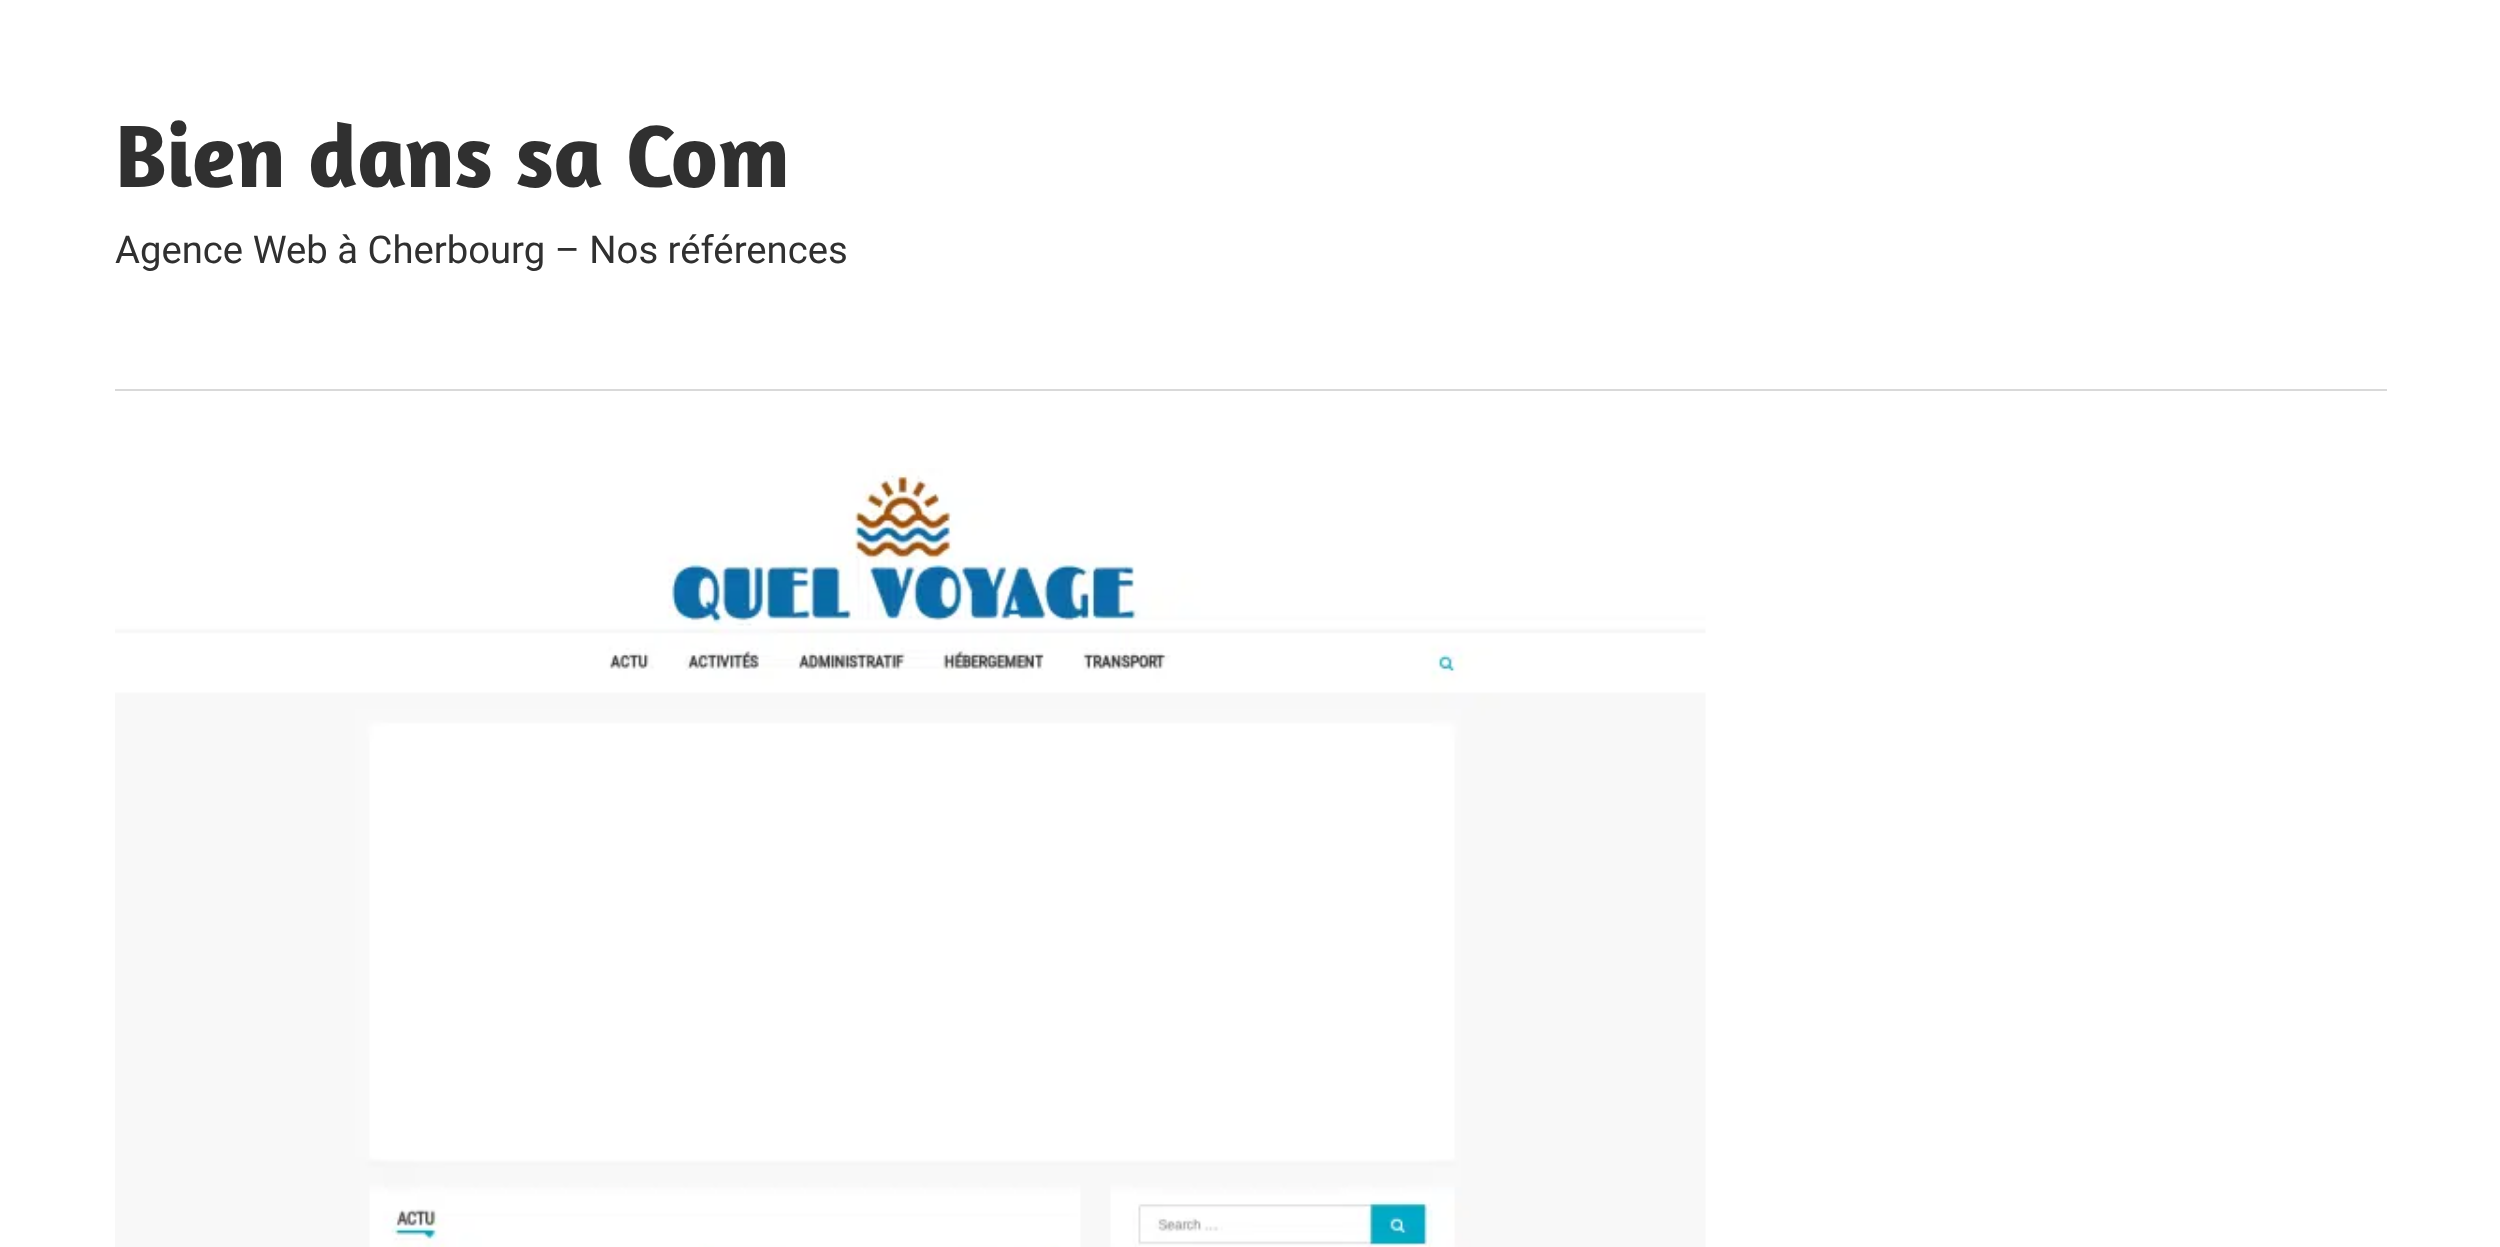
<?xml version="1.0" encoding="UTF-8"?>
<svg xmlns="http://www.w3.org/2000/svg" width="2500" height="1247">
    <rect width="100%" height="100%" fill="#FFFFFF"/>
    <text x="115" y="187" font-family="Amaranth" font-size="90" font-weight="700" fill="#303030">Bien dans sa Com</text>
    <text x="115" y="263" font-family="Roboto" font-size="38.25" fill="#303030">Agence Web à Cherbourg – Nos références</text>
    <rect x="115" y="389" width="2272" height="2" fill="#D9D9D9"/>
    <image x="115" y="468" width="1591" height="779" href="img_01.png"/>
</svg>
